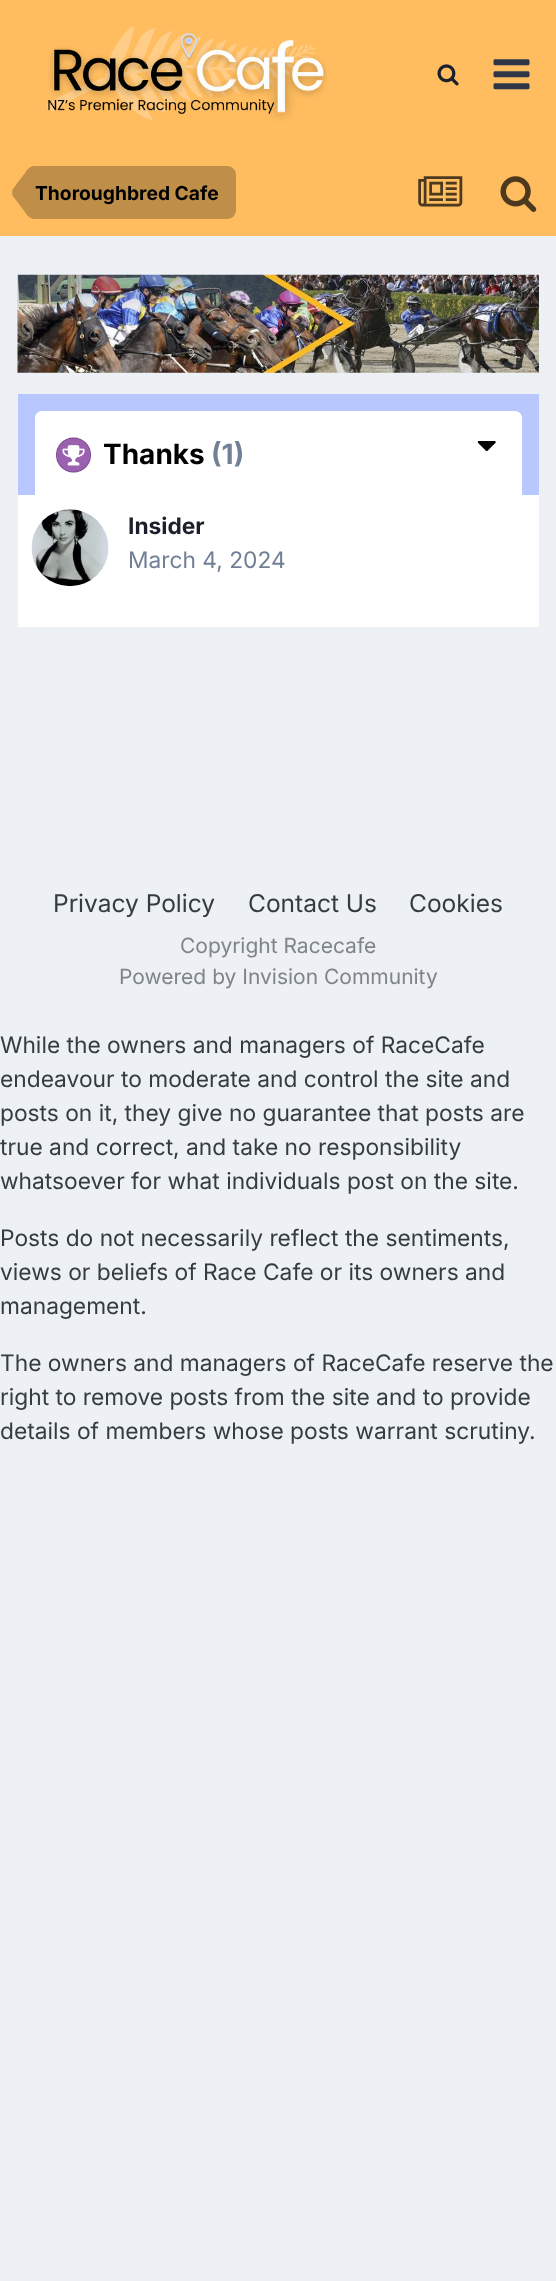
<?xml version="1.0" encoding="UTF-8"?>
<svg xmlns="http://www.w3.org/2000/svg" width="556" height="2281">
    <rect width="100%" height="100%" fill="#EDF0F4"/>
    <rect x="0" y="0" width="556" height="236" fill="#FFBD60"/>
    <image x="46" y="26" width="281" height="95" href="img_01.png"/>
    <image x="437" y="64" width="22" height="22" href="img_02.png"/>
    <image x="493" y="59" width="37" height="31" href="img_03.png"/>
    <path d="M 35 166 H 227 C 232 166 236 170 236 175 V 210 C 236 215 232 219 227 219 H 35 Z" fill="#BF8E48"/>
    <path d="M 12.5 195.5 L 12 192.5 H 35 V 219 C 31 219 27.5 216.5 25 212 Z" fill="#BF8E48"/>
    <path d="M 35 166 V 192.5 H 12 L 12.5 189.5 L 25 173 C 27.5 168.5 31 166 35 166 Z" fill="#000000" fill-opacity="0.25"/>
    <text x="35" y="200" font-family="Inter" font-size="19.25" font-weight="700" fill="#000000">Thoroughbred Cafe</text>
    <image x="418" y="176" width="45" height="31" href="img_04.png"/>
    <image x="500" y="176" width="37" height="36" href="img_05.png"/>
    <image x="17" y="274" width="522" height="99" href="img_06.png"/>
    <rect x="18" y="394" width="521" height="101" fill="#B8C7FE"/>
    <path d="M 42 411 H 515 C 519 411 522 414 522 418 V 495 H 35 V 418 C 35 414 38 411 42 411 Z" fill="#FFFFFF"/>
    <image x="56" y="437" width="35" height="36" href="img_07.png"/>
    <text x="103" y="464" font-family="Inter" font-size="28" font-weight="700" fill="#000000">Thanks</text>
    <text x="211" y="464" font-family="Inter" font-size="28" font-weight="700" fill="#718096">(1)</text>
    <image x="477" y="441" width="19" height="11" href="img_08.png"/>
    <rect x="18" y="495" width="521" height="132" fill="#FFFFFF"/>
    <image x="31" y="509" width="78" height="78" href="img_09.png"/>
    <text x="128" y="534" font-family="Inter" font-size="22.75" font-weight="700" fill="#1A202C">Insider</text>
    <text x="128" y="568" font-family="Inter" font-size="22.75" fill="#718096">March 4, 2024</text>
    <text x="53" y="912" font-family="Inter" font-size="24.5" fill="#353C41">Privacy Policy</text>
    <text x="248" y="912" font-family="Inter" font-size="24.5" fill="#353C41">Contact Us</text>
    <text x="409" y="912" font-family="Inter" font-size="24.5" fill="#353C41">Cookies</text>
    <text x="180" y="953" font-family="Inter" font-size="21" fill="#7F8489">Copyright Racecafe</text>
    <text x="119" y="984" font-family="Inter" font-size="21" fill="#7F8489">Powered by Invision Community</text>
    <text font-family="Inter" font-size="22.75" fill="#353C41">
        <tspan x="0" y="1053">While the owners and managers of RaceCafe</tspan>
        <tspan x="0" y="1087">endeavour to moderate and control the site and</tspan>
        <tspan x="0" y="1121">posts on it, they give no guarantee that posts are</tspan>
        <tspan x="0" y="1155">true and correct, and take no responsibility</tspan>
        <tspan x="0" y="1189">whatsoever for what individuals post on the site.</tspan>
    </text>
    <text font-family="Inter" font-size="22.75" fill="#353C41">
        <tspan x="0" y="1246">Posts do not necessarily reflect the sentiments,</tspan>
        <tspan x="0" y="1280">views or beliefs of Race Cafe or its owners and</tspan>
        <tspan x="0" y="1314">management.</tspan>
    </text>
    <text font-family="Inter" font-size="22.75" fill="#353C41">
        <tspan x="0" y="1371">The owners and managers of RaceCafe reserve the</tspan>
        <tspan x="0" y="1405">right to remove posts from the site and to provide</tspan>
        <tspan x="0" y="1439">details of members whose posts warrant scrutiny.</tspan>
    </text>
</svg>
